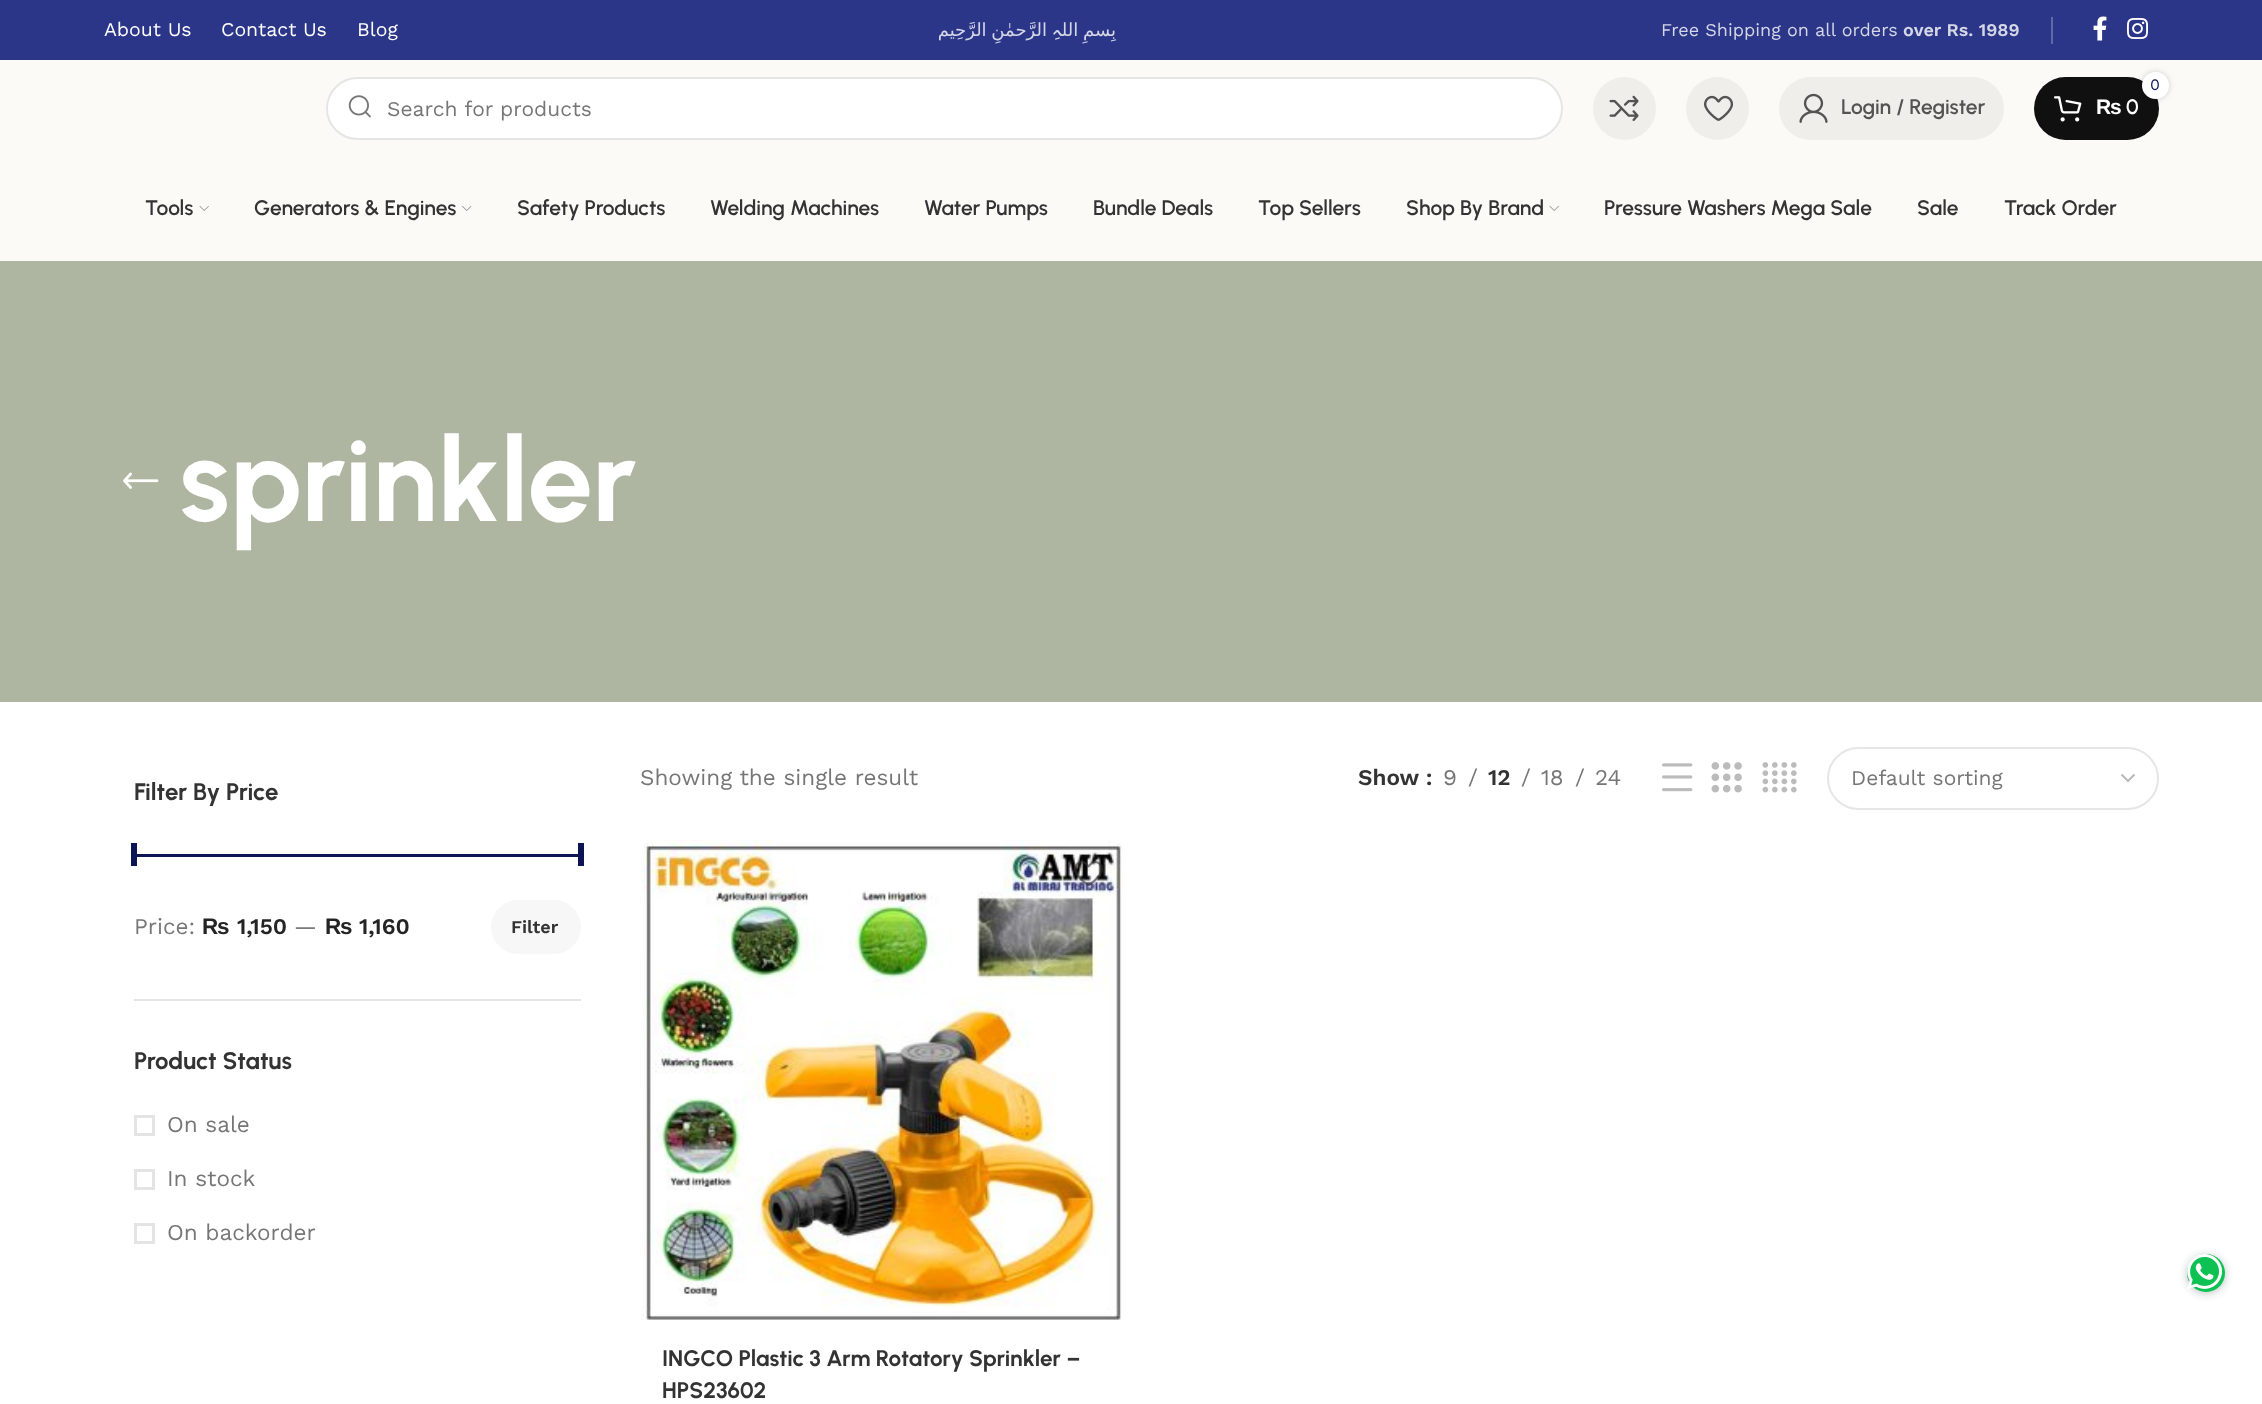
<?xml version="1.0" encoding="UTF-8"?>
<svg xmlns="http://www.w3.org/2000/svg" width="2262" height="1404">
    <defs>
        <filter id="blur1" x="-50%" y="-200%" width="200%" height="500%"><feGaussianBlur stdDeviation="3"/></filter>
        <filter id="blur2" x="-50%" y="-200%" width="200%" height="500%"><feGaussianBlur stdDeviation="4.5"/></filter>
    </defs>
    <rect width="100%" height="100%" fill="#FFFFFF"/>
    <rect x="0" y="0" width="2262" height="60" fill="#2B3689"/>
    <text x="104" y="36" font-family="Work Sans" font-size="19.5" fill="#FFFFFF">About Us</text>
    <text x="221" y="36" font-family="Work Sans" font-size="19.5" fill="#FFFFFF">Contact Us</text>
    <text x="357" y="36" font-family="Work Sans" font-size="19.5" fill="#FFFFFF">Blog</text>
    <text x="1047" y="36" word-spacing="-1" font-family="DejaVu Sans" font-size="18" direction="rtl" fill="#D5D7E7">الرَّحمٰنِ الرَّحِيم</text>
    <text x="1062" y="36" font-family="Cascadia Code" font-size="18" direction="rtl" fill="#D5D7E7">‍ہِ</text>
    <text x="1116" y="36" word-spacing="-1" font-family="DejaVu Sans" font-size="18" direction="rtl" fill="#D5D7E7">بِسمِ الل‍</text>
    <text x="1661" y="36" font-family="Work Sans" font-size="18" fill="#D5D7E7">Free Shipping on all orders</text>
    <text x="1903" y="36" font-family="Work Sans" font-size="18" font-weight="600" fill="#D5D7E7">over Rs. 1989</text>
    <rect x="2051" y="17" width="2" height="27" fill="#6068A7"/>
    <image x="2093" y="16" width="14" height="25" href="img_01.png"/>
    <image x="2127" y="18" width="21" height="21" href="img_02.png"/>
    <rect x="0" y="60" width="2262" height="201" fill="#FBFAF7"/>
    <rect x="326" y="77" width="1237" height="63" rx="31.5" fill="#FFFFFF"/>
    <rect x="327" y="78" width="1235" height="61" rx="30.5" fill="none" stroke="#000000" stroke-opacity="0.1" stroke-width="2"/>
    <image x="348" y="95" width="23" height="23" href="img_03.png"/>
    <text x="387" y="116" font-family="Work Sans" font-size="21" fill="#767676">Search for products</text>
    <circle cx="1624.5" cy="108.5" r="31.5" fill="#EFEEEB"/>
    <image x="1609" y="95" width="30" height="26" href="img_04.png"/>
    <circle cx="1717.5" cy="108.5" r="31.5" fill="#EFEEEB"/>
    <image x="1704" y="95" width="30" height="26" href="img_05.png"/>
    <rect x="1779" y="77" width="225" height="63" rx="31.5" fill="#EFEEEB"/>
    <image x="1799" y="93" width="29" height="30" href="img_06.png"/>
    <text x="1841" y="114" font-family="Urbanist" font-size="21" font-weight="600" fill="#535352">Login / Register</text>
    <rect x="2034" y="77" width="125" height="63" rx="31.5" fill="#101010"/>
    <rect x="2142" y="72" width="27" height="27" rx="13.5" fill="#000000" fill-opacity="0.17" filter="url(#blur1)"/>
    <circle cx="2155.5" cy="85.5" r="13.5" fill="#FFFFFF"/>
    <text x="2150" y="90" font-family="Work Sans" font-size="16" fill="#0C1454">0</text>
    <image x="2054" y="96" width="28" height="26" href="img_07.png"/>
    <text x="2096" y="114" font-family="Liberation Sans" font-size="21" font-weight="700" fill="#FFFFFF">₨</text>
    <text x="2126" y="114" font-family="Urbanist" font-size="21" font-weight="600" fill="#FFFFFF">0</text>
    <text x="145" y="215" font-family="Urbanist" font-size="21" font-weight="600" fill="#333333">Tools</text>
    <image x="199" y="205" width="10" height="6" href="img_08.png"/>
    <text x="254" y="215" font-family="Urbanist" font-size="21" font-weight="600" fill="#333333">Generators &amp; Engines</text>
    <image x="462" y="205" width="10" height="6" href="img_09.png"/>
    <text x="517" y="215" font-family="Urbanist" font-size="21" font-weight="600" fill="#333333">Safety Products</text>
    <text x="710" y="215" font-family="Urbanist" font-size="21" font-weight="600" fill="#333333">Welding Machines</text>
    <text x="924" y="215" font-family="Urbanist" font-size="21" font-weight="600" fill="#333333">Water Pumps</text>
    <text x="1093" y="215" font-family="Urbanist" font-size="21" font-weight="600" fill="#333333">Bundle Deals</text>
    <text x="1258" y="215" font-family="Urbanist" font-size="21" font-weight="600" fill="#333333">Top Sellers</text>
    <text x="1406" y="215" font-family="Urbanist" font-size="21" font-weight="600" fill="#333333">Shop By Brand</text>
    <image x="1549" y="205" width="10" height="6" href="img_08.png"/>
    <text x="1604" y="215" font-family="Urbanist" font-size="21" font-weight="600" fill="#333333">Pressure Washers Mega Sale</text>
    <text x="1917" y="215" font-family="Urbanist" font-size="21" font-weight="600" fill="#333333">Sale</text>
    <text x="2004" y="215" font-family="Urbanist" font-size="21" font-weight="600" fill="#333333">Track Order</text>
    <rect x="0" y="261" width="2262" height="441" fill="#AEB6A1"/>
    <image x="123" y="472" width="36" height="17" href="img_10.png"/>
    <text x="179" y="521" font-family="Urbanist" font-size="117" font-weight="700" fill="#FFFFFF">sprinkler</text>
    <rect x="134" y="999" width="447" height="2" fill="#E4E4E4"/>
    <text x="134" y="800" font-family="Urbanist" font-size="24" font-weight="700" fill="#333333">Filter By Price</text>
    <rect x="134" y="854" width="447" height="3" fill="#0C1454"/>
    <rect x="131" y="843" width="6" height="23" fill="#0C1454"/>
    <rect x="578" y="843" width="6" height="23" fill="#0C1454"/>
    <text x="134" y="934" font-family="Work Sans" font-size="22.5" fill="#767676">Price:</text>
    <text x="202" y="934" font-family="Liberation Sans" font-size="22.5" font-weight="700" fill="#242424">₨</text>
    <text x="237" y="934" font-family="Work Sans" font-size="22.5" font-weight="600" fill="#242424">1,150</text>
    <text x="294" y="934" font-family="Work Sans" font-size="22.5" fill="#767676">—</text>
    <text x="325" y="934" font-family="Liberation Sans" font-size="22.5" font-weight="700" fill="#242424">₨</text>
    <text x="359" y="934" font-family="Work Sans" font-size="22.5" font-weight="600" fill="#242424">1,160</text>
    <rect x="491" y="900" width="90" height="54" rx="27" fill="#F7F7F7"/>
    <text x="511" y="933" font-family="Work Sans" font-size="18" font-weight="600" fill="#333333">Filter</text>
    <text x="134" y="1069" font-family="Urbanist" font-size="24" font-weight="700" fill="#333333">Product Status</text>
    <rect x="135.5" y="1116.5" width="18" height="18" fill="none" stroke="#E4E4E4" stroke-width="3"/>
    <text x="167" y="1132" font-family="Work Sans" font-size="22.5" fill="#767676">On sale</text>
    <rect x="135.5" y="1170.5" width="18" height="18" fill="none" stroke="#E4E4E4" stroke-width="3"/>
    <text x="167" y="1186" font-family="Work Sans" font-size="22.5" fill="#767676">In stock</text>
    <rect x="135.5" y="1224.5" width="18" height="18" fill="none" stroke="#E4E4E4" stroke-width="3"/>
    <text x="167" y="1240" font-family="Work Sans" font-size="22.5" fill="#767676">On backorder</text>
    <text x="640" y="785" font-family="Work Sans" font-size="22.5" fill="#767676">Showing the single result</text>
    <text x="1358" y="785" font-family="Work Sans" font-size="22.5" font-weight="600" fill="#333333">Show :</text>
    <text x="1443" y="785" font-family="Work Sans" font-size="22.5" fill="#767676">9</text>
    <text x="1468" y="785" font-family="Work Sans" font-size="22.5" fill="#767676">/</text>
    <text x="1488" y="785" font-family="Work Sans" font-size="22.5" font-weight="600" fill="#333333">12</text>
    <text x="1521" y="785" font-family="Work Sans" font-size="22.5" fill="#767676">/</text>
    <text x="1541" y="785" font-family="Work Sans" font-size="22.5" fill="#767676">18</text>
    <text x="1575" y="785" font-family="Work Sans" font-size="22.5" fill="#767676">/</text>
    <text x="1595" y="785" font-family="Work Sans" font-size="22.5" fill="#767676">24</text>
    <image x="1662" y="763" width="31" height="29" href="img_11.png"/>
    <image x="1711" y="762" width="31" height="31" href="img_12.png"/>
    <image x="1762" y="762" width="35" height="31" href="img_13.png"/>
    <path d="M 2121.5 774.5 L 2128 781 L 2134.5 774.5" fill="none" stroke="#BBBBBB" stroke-width="2.2"/>
    <rect x="1828" y="748" width="330" height="61" rx="30.5" fill="none" stroke="#E6E6E6" stroke-width="2"/>
    <text x="1851" y="785" font-family="Work Sans" font-size="21" fill="#767676">Default sorting</text>
    <image x="641" y="840" width="482" height="480" href="img_14.png"/>
    <image x="1074" y="861" width="29" height="25" href="img_15.png"/>
    <text font-family="Urbanist" font-size="22.5" font-weight="700" fill="#333333">
        <tspan x="662" y="1366">INGCO Plastic 3 Arm Rotatory Sprinkler –</tspan>
        <tspan x="662" y="1398">HPS23602</tspan>
    </text>
    <rect x="2187" y="1256" width="38" height="37" rx="18.5" fill="#39494C" fill-opacity="0.35" filter="url(#blur2)"/>
    <circle cx="2206" cy="1273" r="19" fill="#0DC152"/>
    <image x="2187" y="1254" width="35" height="35" href="img_16.png"/>
</svg>
